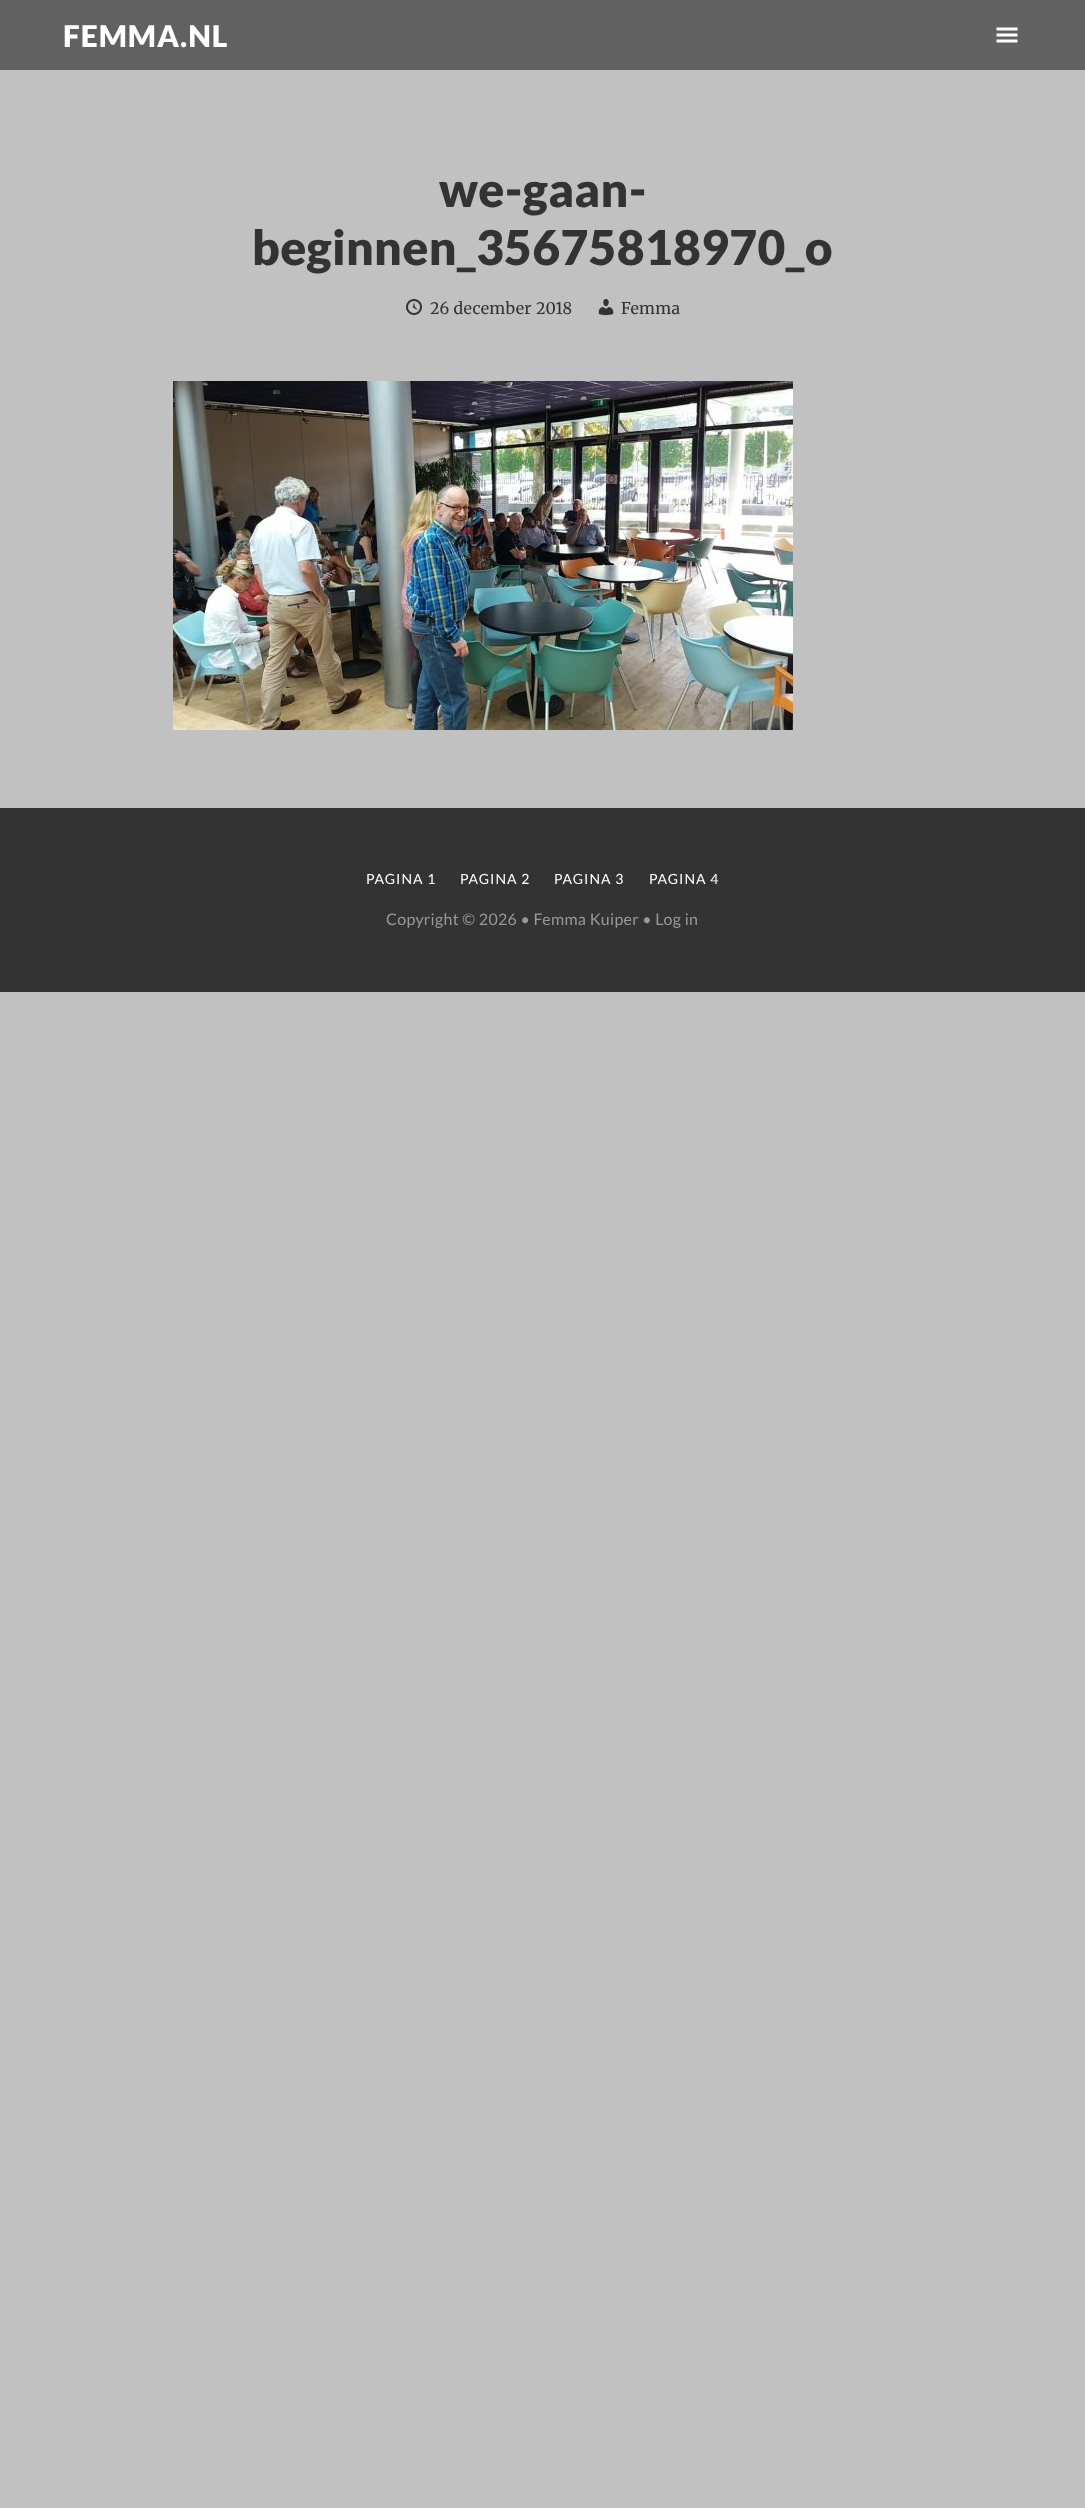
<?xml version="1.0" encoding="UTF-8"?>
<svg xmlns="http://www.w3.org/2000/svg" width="1085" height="2508">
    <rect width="100%" height="100%" fill="#C1C1C1"/>
    <rect x="0" y="0" width="1085" height="70" fill="#616161"/>
    <text x="63" y="47" font-family="Lato" font-size="30" font-weight="900" letter-spacing="1" fill="#FFFFFF">FEMMA.NL</text>
    <image x="996" y="27" width="22" height="16" href="img_01.png"/>
    <text x="439" y="207" font-family="Lato" font-size="48" font-weight="900" letter-spacing="0.3" fill="#333333">we-gaan-</text>
    <text x="252" y="265" font-family="Lato" font-size="48" font-weight="900" letter-spacing="0.3" fill="#333333">beginnen_35675818970_o</text>
    <image x="406" y="299" width="16" height="16" href="img_02.png"/>
    <text x="430" y="314" font-family="Merriweather" font-size="16" letter-spacing="0.3" fill="#333333">26 december 2018</text>
    <image x="598" y="299" width="16" height="17" href="img_03.png"/>
    <text x="621" y="314" font-family="Merriweather" font-size="16" letter-spacing="0.3" fill="#333333">Femma</text>
    <image x="173" y="381" width="620" height="349" href="img_04.png"/>
    <rect x="0" y="808" width="1085" height="184" fill="#333333"/>
    <text x="366" y="884" font-family="Lato" font-size="14" letter-spacing="1" fill="#FFFFFF">PAGINA 1</text>
    <text x="460" y="884" font-family="Lato" font-size="14" letter-spacing="1" fill="#FFFFFF">PAGINA 2</text>
    <text x="554" y="884" font-family="Lato" font-size="14" letter-spacing="1" fill="#FFFFFF">PAGINA 3</text>
    <text x="649" y="884" font-family="Lato" font-size="14" letter-spacing="1" fill="#FFFFFF">PAGINA 4</text>
    <text x="386" y="925" font-family="Lato" font-size="16" letter-spacing="0.3" fill="#999999">Copyright © 2026 • Femma Kuiper • Log in</text>
</svg>
